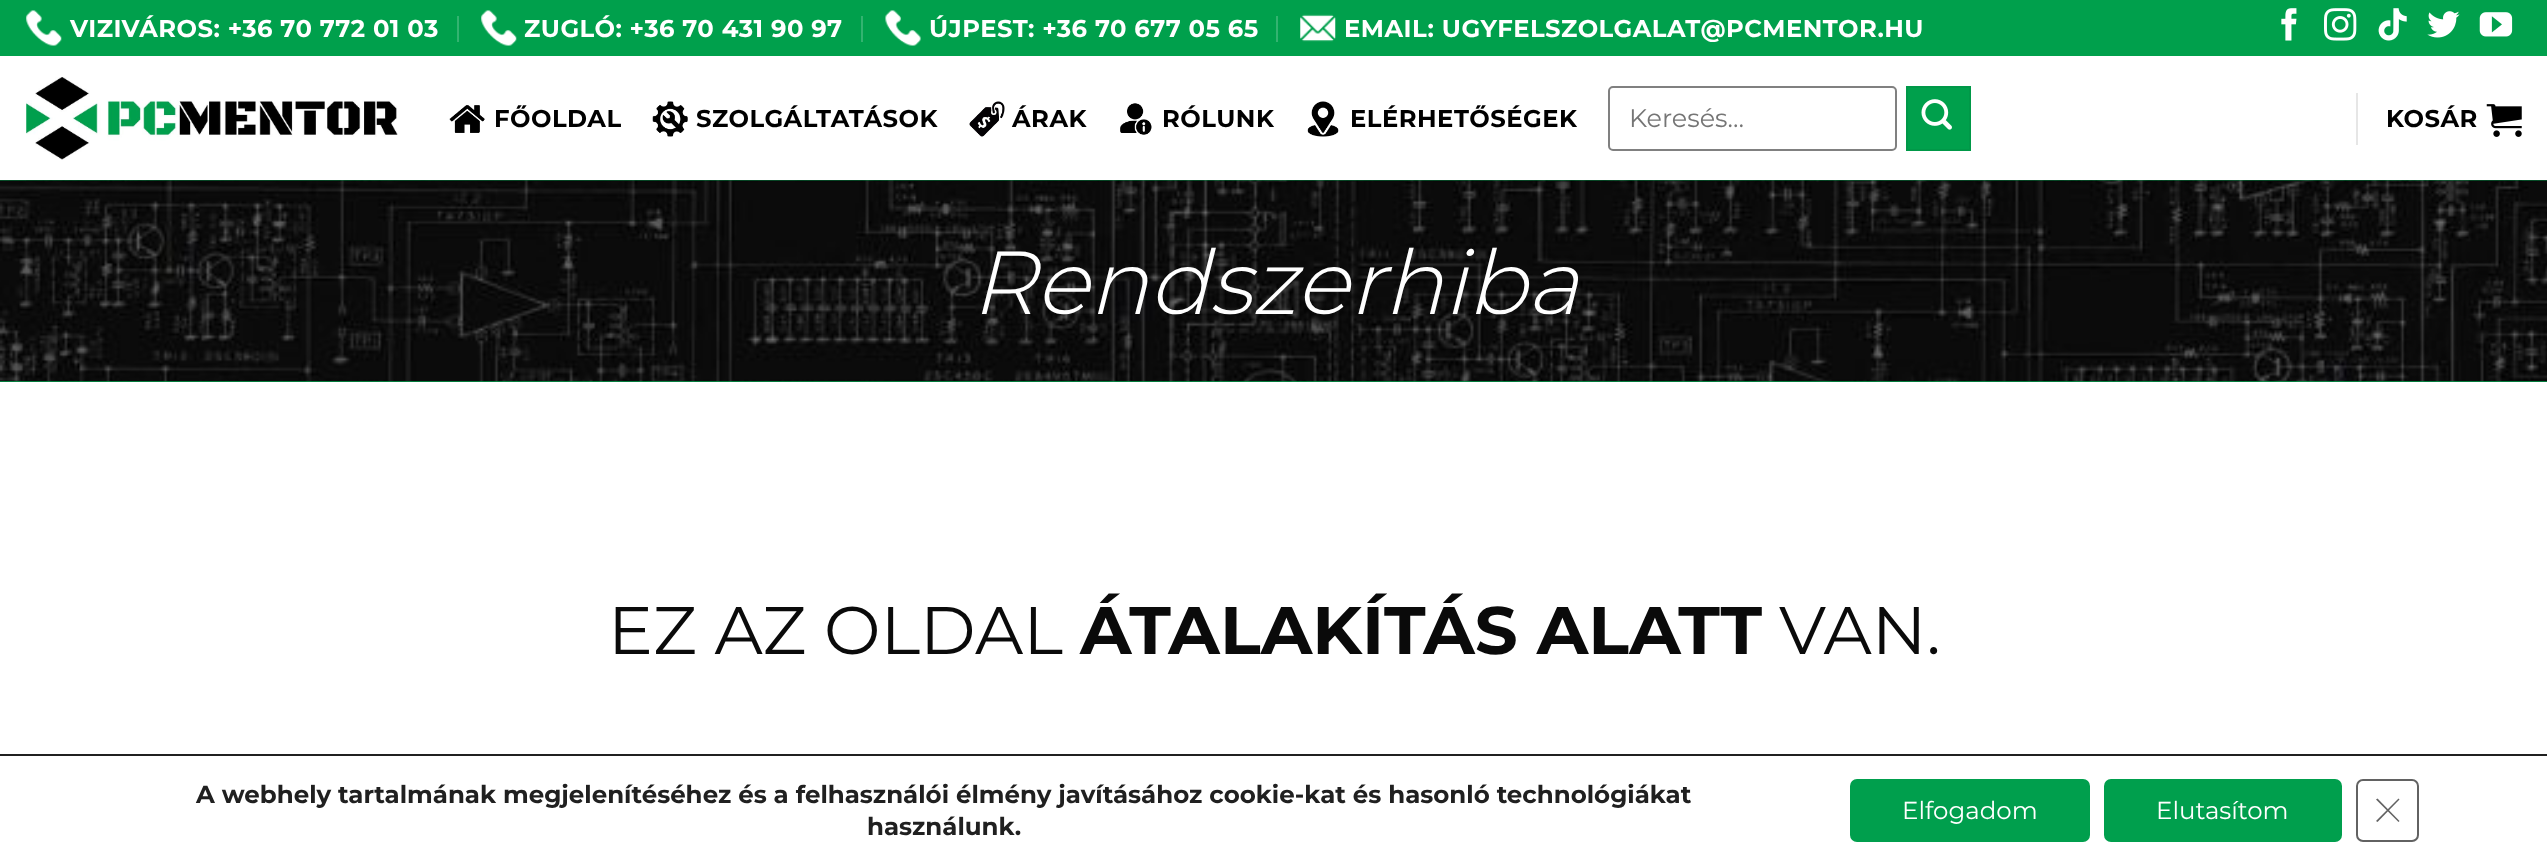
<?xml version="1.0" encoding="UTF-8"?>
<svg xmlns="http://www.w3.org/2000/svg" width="2547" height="863">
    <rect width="100%" height="100%" fill="#FFFFFF"/>
    <rect x="0" y="0" width="2547" height="56" fill="#00A04C"/>
    <image x="26" y="10" width="36" height="36" href="img_01.png"/>
    <text x="70" y="37" font-family="Montserrat" font-size="24.25" font-weight="700" letter-spacing="0.5" fill="#FFFFFF">VIZIVÁROS: +36 70 772 01 03</text>
    <rect x="457" y="16" width="2" height="26" fill="#33B370"/>
    <image x="481" y="10" width="36" height="36" href="img_02.png"/>
    <text x="524" y="37" font-family="Montserrat" font-size="24.25" font-weight="700" letter-spacing="0.5" fill="#FFFFFF">ZUGLÓ: +36 70 431 90 97</text>
    <rect x="861" y="16" width="2" height="26" fill="#33B370"/>
    <image x="885" y="10" width="36" height="36" href="img_03.png"/>
    <text x="929" y="37" font-family="Montserrat" font-size="24.25" font-weight="700" letter-spacing="0.5" fill="#FFFFFF">ÚJPEST: +36 70 677 05 65</text>
    <rect x="1276" y="16" width="2" height="26" fill="#33B370"/>
    <image x="1300" y="14" width="36" height="28" href="img_04.png"/>
    <text x="1344" y="37" font-family="Montserrat" font-size="24.25" font-weight="700" letter-spacing="0.5" fill="#FFFFFF">EMAIL: UGYFELSZOLGALAT@PCMENTOR.HU</text>
    <image x="2281" y="8" width="16" height="33" href="img_05.png"/>
    <image x="2324" y="8" width="33" height="33" href="img_06.png"/>
    <image x="2378" y="8" width="29" height="33" href="img_07.png"/>
    <image x="2427" y="11" width="33" height="27" href="img_08.png"/>
    <image x="2479" y="12" width="34" height="25" href="img_09.png"/>
    <image x="26" y="77" width="372" height="83" href="img_10.png"/>
    <image x="449" y="105" width="36" height="28" href="img_11.png"/>
    <text x="494" y="127" font-family="Montserrat" font-size="24.25" font-weight="700" letter-spacing="0.5" fill="#000000">FŐOLDAL</text>
    <image x="652" y="101" width="36" height="36" href="img_12.png"/>
    <text x="696" y="127" font-family="Montserrat" font-size="24.25" font-weight="700" letter-spacing="0.5" fill="#000000">SZOLGÁLTATÁSOK</text>
    <image x="969" y="101" width="36" height="36" href="img_13.png"/>
    <text x="1012" y="127" font-family="Montserrat" font-size="24.25" font-weight="700" letter-spacing="0.5" fill="#000000">ÁRAK</text>
    <image x="1120" y="103" width="32" height="32" href="img_14.png"/>
    <text x="1162" y="127" font-family="Montserrat" font-size="24.25" font-weight="700" letter-spacing="0.5" fill="#000000">RÓLUNK</text>
    <image x="1307" y="101" width="32" height="36" href="img_15.png"/>
    <text x="1350" y="127" font-family="Montserrat" font-size="24.25" font-weight="700" letter-spacing="0.5" fill="#000000">ELÉRHETŐSÉGEK</text>
    <rect x="1609" y="87" width="287" height="63" rx="4" fill="none" stroke="#808080" stroke-width="2"/>
    <text x="1629" y="127" font-family="Montserrat" font-size="25.5" fill="#757575">Keresés…</text>
    <rect x="1907" y="87" width="63" height="63" fill="#00A04C" stroke="#009848" stroke-width="2"/>
    <image x="1921" y="99" width="31" height="31" href="img_16.png"/>
    <rect x="2356" y="93" width="2" height="52" fill="#E6E6E6"/>
    <text x="2386" y="127" font-family="Montserrat" font-size="24.25" font-weight="700" letter-spacing="0.5" fill="#000000">KOSÁR</text>
    <image x="2486" y="104" width="36" height="33" href="img_17.png"/>
    <rect x="0" y="180" width="2547" height="202" fill="#00A04C"/>
    <image x="0" y="180" width="2547" height="202" href="img_18.png"/>
    <rect x="26" y="180" width="2496" height="2" fill="#0A0A0A" fill-opacity="0.1"/>
    <text x="971" y="314" font-family="Montserrat" font-size="89.25" font-weight="300" font-style="italic" fill="#FFFFFF">Rendszerhiba</text>
    <text x="608" y="654" font-family="Montserrat" font-size="67.25" fill="#0A0A0A">EZ AZ OLDAL</text>
    <text x="1080" y="654" font-family="Montserrat" font-size="67.25" font-weight="700" fill="#0A0A0A">ÁTALAKÍTÁS ALATT</text>
    <text x="1779" y="654" font-family="Montserrat" font-size="67.25" fill="#0A0A0A">VAN.</text>
    <rect x="0" y="754" width="2547" height="2" fill="#202020"/>
    <text x="196" y="803" font-family="Montserrat" font-size="24.5" font-weight="700" fill="#202020">A webhely tartalmának megjelenítéséhez és a felhasználói élmény javításához cookie-kat és hasonló technológiákat</text>
    <text x="867" y="835" font-family="Montserrat" font-size="24.5" font-weight="700" fill="#202020">használunk.</text>
    <rect x="1850" y="779" width="240" height="63" rx="7" fill="#009F4D"/>
    <text x="1902" y="819" font-family="Montserrat" font-size="24.5" fill="#FFFFFF">Elfogadom</text>
    <rect x="2104" y="779" width="238" height="63" rx="7" fill="#009F4D"/>
    <text x="2156" y="819" font-family="Montserrat" font-size="24.5" fill="#FFFFFF">Elutasítom</text>
    <rect x="2357" y="780" width="61" height="61" rx="6" fill="none" stroke="#626262" stroke-width="2"/>
    <path d="M 2398.5 798.5 L 2399.5 799.5 L 2377.5 822 L 2376 821 Z" fill="#626262"/>
    <path d="M 2376 799.5 L 2377.5 798.5 L 2399.5 821 L 2398.5 822 Z" fill="#626262"/>
</svg>
